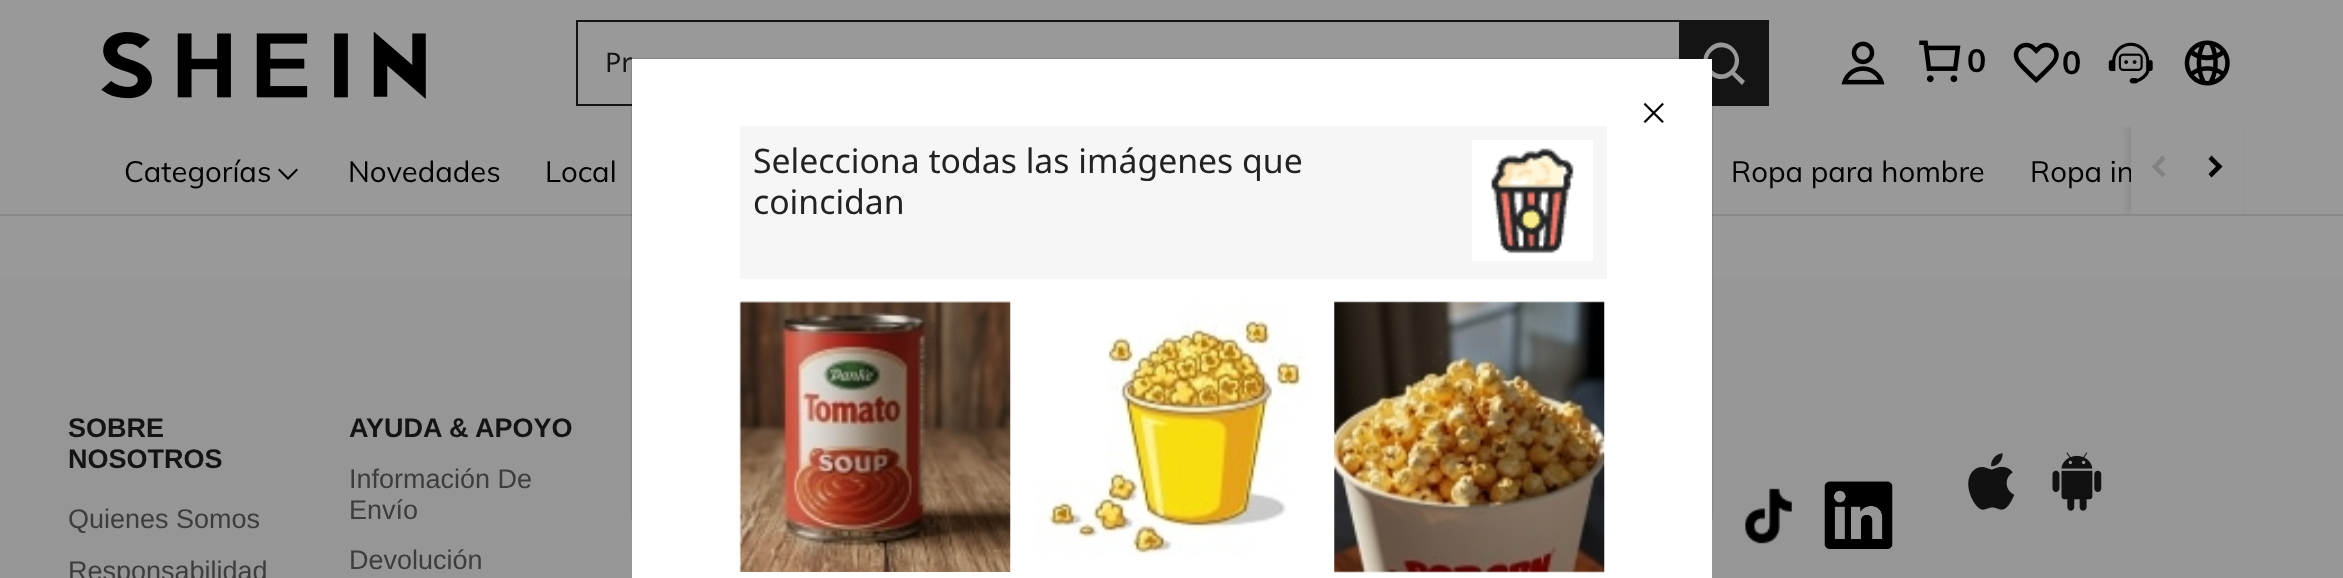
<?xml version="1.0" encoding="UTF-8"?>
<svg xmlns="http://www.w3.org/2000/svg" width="2343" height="578">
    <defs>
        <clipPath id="clip1"><rect x="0" y="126" width="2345" height="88"/></clipPath>
        <filter id="blur1" x="-50%" y="-200%" width="200%" height="500%"><feGaussianBlur stdDeviation="3.5"/></filter>
        <filter id="blur2" x="-50%" y="-200%" width="200%" height="500%"><feGaussianBlur stdDeviation="1"/></filter>
    </defs>
    <rect width="100%" height="100%" fill="#999999"/>
    <image x="101" y="32" width="325" height="67" href="img_01.png"/>
    <rect x="576" y="20" width="1103" height="2" fill="#141414"/>
    <rect x="576" y="104" width="56" height="2" fill="#141414"/>
    <rect x="576" y="20" width="2" height="86" fill="#141414"/>
    <text x="605" y="72" font-family="Noto Sans" font-size="27" fill="#141414">Pr</text>
    <rect x="1679" y="20" width="90" height="86" fill="#141414"/>
    <path d="M 1709 48 C 1724 32 1749 54 1735 72 L 1745 81 L 1742 85 L 1732 75 C 1715 89 1693 64 1709 48 Z M 1731 51 C 1718 39 1699 58 1712 70 C 1724 83 1743 64 1731 51 Z" fill="#999999" fill-rule="evenodd"/>
    <image x="1841" y="41" width="44" height="44" href="img_02.png"/>
    <image x="1919" y="40" width="42" height="43" href="img_03.png"/>
    <text x="1967" y="72" font-family="Muli" font-size="32" font-weight="700" fill="#000000">0</text>
    <image x="2013" y="42" width="46" height="41" href="img_04.png"/>
    <text x="2062" y="74" font-family="Muli" font-size="32" font-weight="700" fill="#000000">0</text>
    <image x="2108" y="42" width="45" height="42" href="img_05.png"/>
    <image x="2184" y="40" width="46" height="46" href="img_06.png"/>
    <rect x="0" y="214" width="2343" height="2" fill="#898989"/>
    <text x="124" y="182" font-family="Muli" font-size="29.25" fill="#000000">Categorías</text>
    <path d="M 296.5 168.5 L 298 170 L 288 180 L 278 170 L 279.5 168.5 L 288 177 Z" fill="#000000"/>
    <text x="348" y="182" font-family="Muli" font-size="29.25" fill="#000000">Novedades</text>
    <text x="545" y="182" font-family="Muli" font-size="29.25" fill="#000000">Local</text>
    <text x="1731" y="182" font-family="Muli" font-size="29.25" fill="#000000">Ropa para hombre</text>
    <text x="2030" y="182" font-family="Muli" font-size="29.25" fill="#000000">Ropa in</text>
    <g clip-path="url(#clip1)">
        <rect x="2126" y="126" width="113" height="88" fill="#000000" fill-opacity="0.08" filter="url(#blur1)"/>
    </g>
    <rect x="2131" y="126" width="111" height="88" fill="#999999"/>
    <path d="M 2162.5 155.5 L 2165.5 159 L 2158 166.5 L 2165.5 174 L 2162.5 177.5 L 2151.5 166.5 Z" fill="#828282" fill-rule="evenodd"/>
    <path d="M 2208.5 159 L 2211.5 155.5 L 2222.5 166.5 L 2211.5 177.5 L 2208.5 174 L 2216 166.5 Z" fill="#000000" fill-rule="evenodd"/>
    <rect x="0" y="279" width="2343" height="299" fill="#969696"/>
    <text font-family="Liberation Sans" font-size="27" font-weight="700" fill="#141414">
        <tspan x="68" y="437">SOBRE</tspan>
        <tspan x="68" y="468">NOSOTROS</tspan>
    </text>
    <text font-family="Liberation Sans" font-size="27" fill="#3D3D3D">
        <tspan x="68" y="528">Quienes Somos</tspan>
        <tspan x="68" y="580">Responsabilidad</tspan>
    </text>
    <text x="349" y="437" font-family="Liberation Sans" font-size="27" font-weight="700" fill="#141414">AYUDA &amp; APOYO</text>
    <text font-family="Liberation Sans" font-size="27" fill="#3D3D3D">
        <tspan x="349" y="488">Información De</tspan>
        <tspan x="349" y="519">Envío</tspan>
        <tspan x="349" y="569">Devolución</tspan>
    </text>
    <image x="1745" y="488" width="47" height="56" href="img_07.png"/>
    <image x="1824" y="481" width="69" height="68" href="img_08.png"/>
    <image x="1968" y="453" width="47" height="57" href="img_09.png"/>
    <image x="2052" y="452" width="50" height="59" href="img_10.png"/>
    <rect x="632" y="59" width="1080" height="461" fill="#000000" fill-opacity="0.3" filter="url(#blur2)"/>
    <rect x="632" y="59" width="1080" height="519" fill="#FFFFFF"/>
    <image x="1643" y="102" width="21" height="22" href="img_11.png"/>
    <rect x="740" y="126" width="867" height="153" fill="#F6F6F6"/>
    <text font-family="Noto Sans" font-size="33.75" fill="#222222">
        <tspan x="753" y="173">Selecciona todas las imágenes que</tspan>
        <tspan x="753" y="214">coincidan</tspan>
    </text>
    <rect x="1472" y="140" width="121" height="121" fill="#FFFFFF"/>
    <image x="1491" y="148" width="83" height="106" href="img_12.png"/>
    <image x="739" y="301" width="272" height="271" href="img_13.png"/>
    <image x="1037" y="302" width="270" height="254" href="img_14.png"/>
    <image x="1334" y="301" width="271" height="272" href="img_15.png"/>
</svg>
